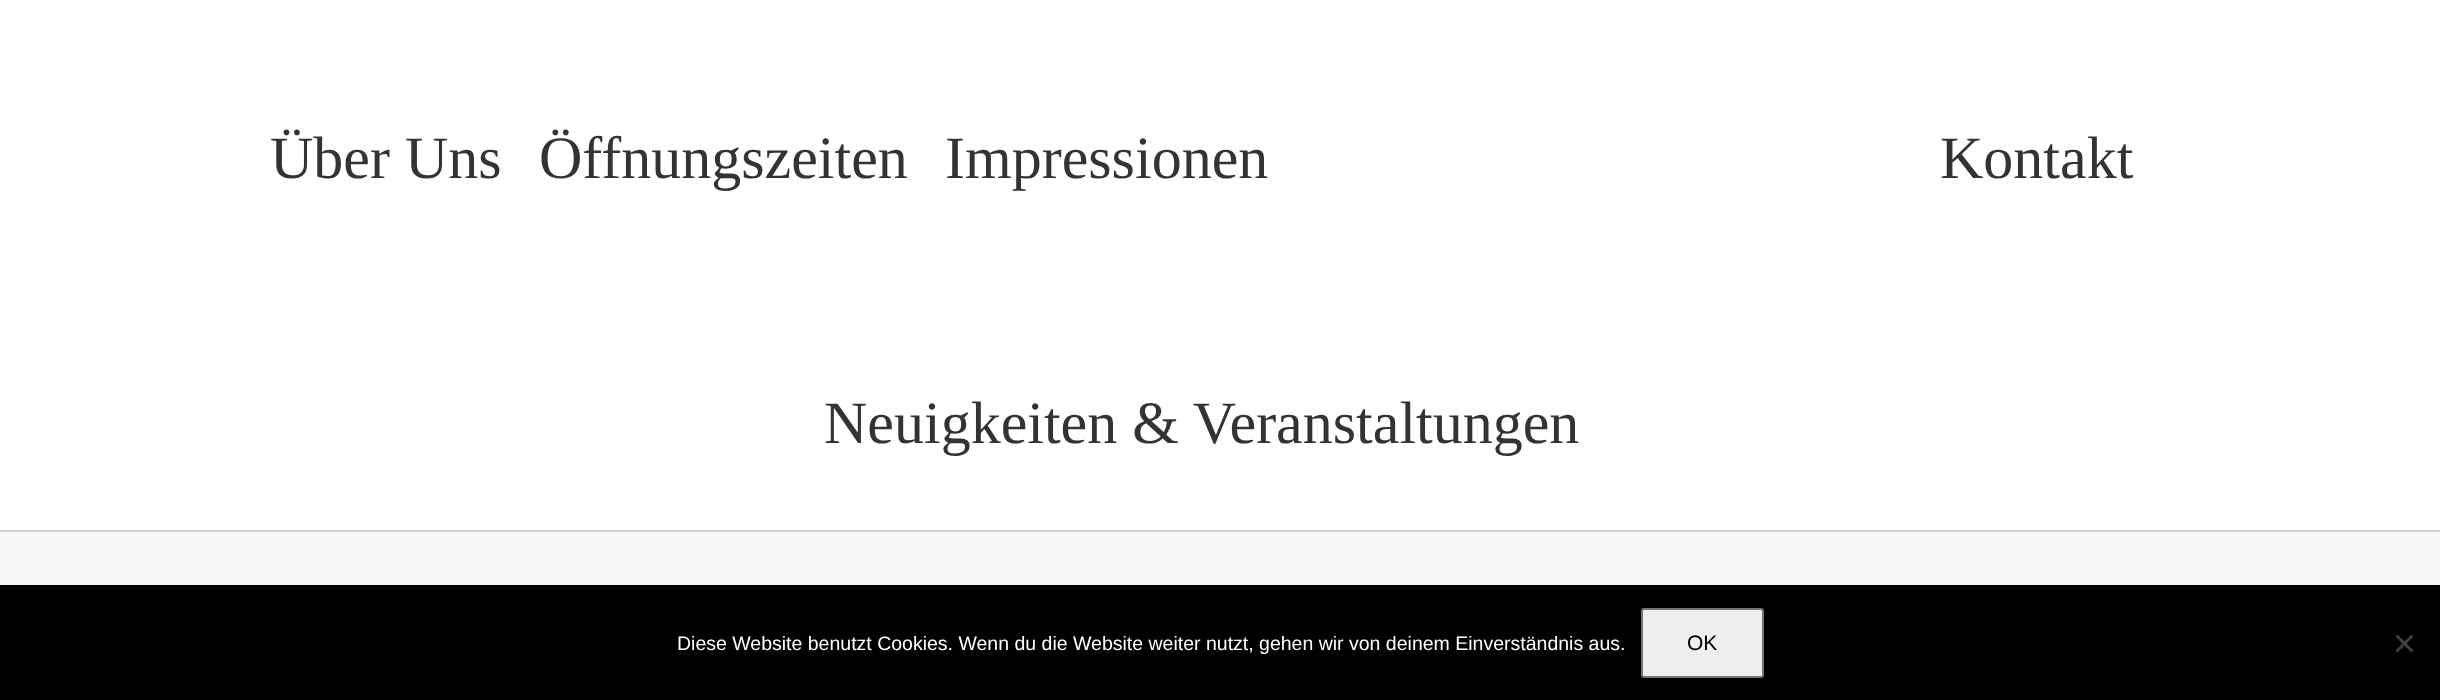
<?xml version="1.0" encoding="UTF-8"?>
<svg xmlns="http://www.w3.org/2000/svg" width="2440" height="700">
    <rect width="100%" height="100%" fill="#FFFFFF"/>
    <text x="270" y="178" font-family="Liberation Serif" font-size="60" fill="#333333">Über Uns</text>
    <text x="539" y="178" font-family="Liberation Serif" font-size="60" fill="#333333">Öffnungszeiten</text>
    <text x="945" y="178" font-family="Liberation Serif" font-size="60" fill="#333333">Impressionen</text>
    <text x="1940" y="178" font-family="Liberation Serif" font-size="60" fill="#333333">Kontakt</text>
    <text x="824" y="443" font-family="Liberation Serif" font-size="60" fill="#333333">Neuigkeiten &amp; Veranstaltungen</text>
    <rect x="0" y="532" width="2440" height="53" fill="#F6F6F6"/>
    <rect x="0" y="530" width="2440" height="2" fill="#D2D3D4"/>
    <rect x="0" y="585" width="2440" height="115" fill="#000000"/>
    <text x="677" y="650" font-family="Liberation Sans" font-size="19.5" fill="#FFFFFF">Diese Website benutzt Cookies. Wenn du die Website weiter nutzt, gehen wir von deinem Einverständnis aus.</text>
    <rect x="1642" y="609" width="121" height="68" rx="2" fill="#EFEFEF" stroke="#767676" stroke-width="2"/>
    <text x="1687" y="650" font-family="Liberation Sans" font-size="21" fill="#000000">OK</text>
    <path d="M 2411.5 634.5 L 2413.5 636.5 L 2397.5 652.5 L 2395.5 650.5 Z" fill="#404040"/>
    <path d="M 2395.5 636.5 L 2397.5 634.5 L 2413.5 650.5 L 2411.5 652.5 Z" fill="#404040"/>
</svg>
